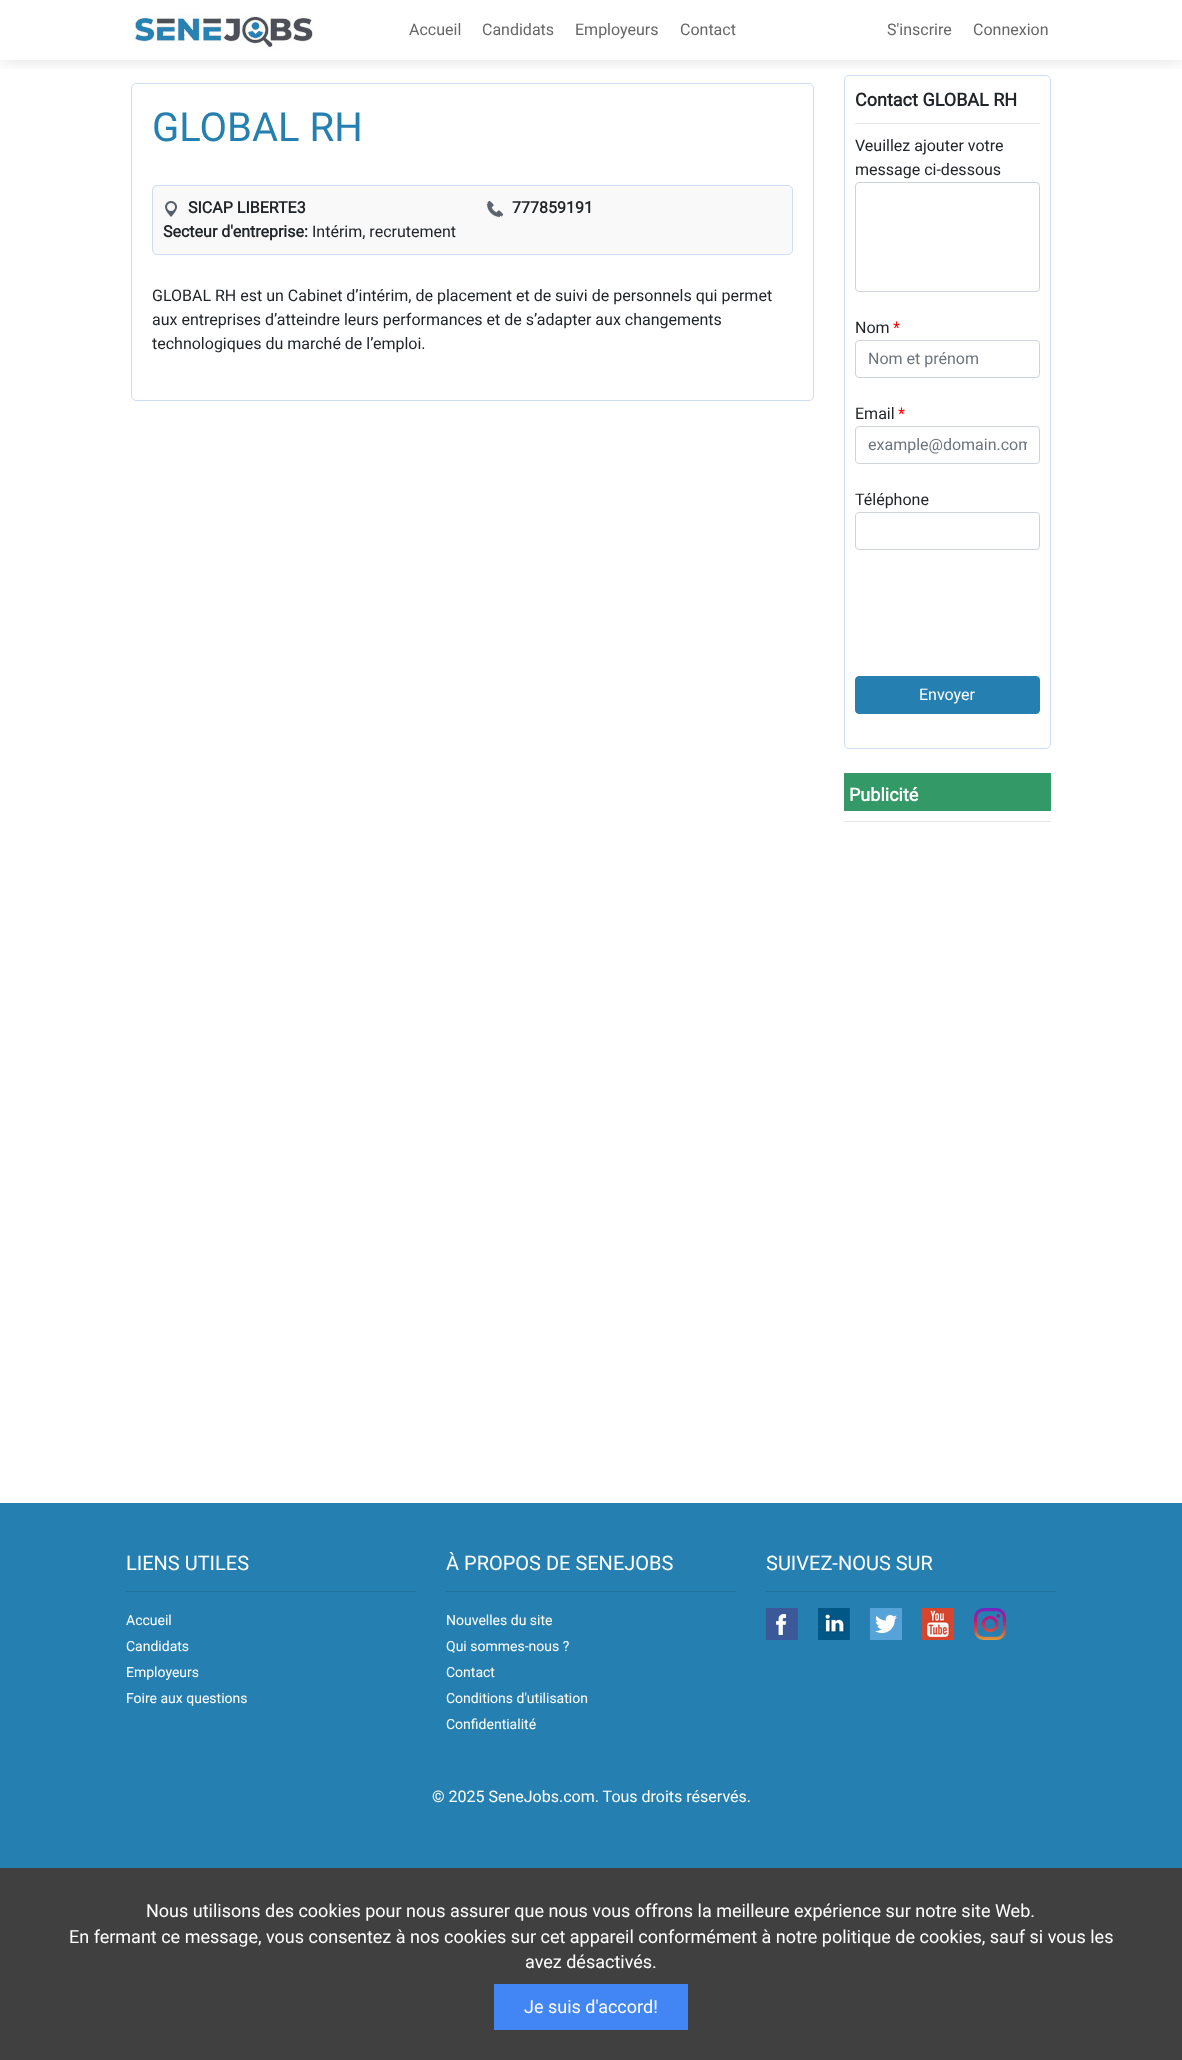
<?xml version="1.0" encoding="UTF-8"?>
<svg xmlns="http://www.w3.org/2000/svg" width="1182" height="2060">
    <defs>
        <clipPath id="clip1"><rect x="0" y="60" width="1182" height="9"/></clipPath>
        <filter id="blur1" x="-50%" y="-200%" width="200%" height="500%"><feGaussianBlur stdDeviation="9"/></filter>
        <clipPath id="clip2"><rect x="868" y="435" width="159" height="19"/></clipPath>
    </defs>
    <rect width="100%" height="100%" fill="#FFFFFF"/>
    <rect x="131.5" y="83.5" width="682" height="317" rx="4.5" fill="none" stroke="#CFDDF3"/>
    <rect x="844.5" y="75.5" width="206" height="673" rx="4.5" fill="none" stroke="#CFDDF3"/>
    <g clip-path="url(#clip1)">
        <rect x="0" y="0" width="1182" height="60" fill="#000000" fill-opacity="0.12" filter="url(#blur1)"/>
    </g>
    <image x="134" y="13" width="180" height="38" href="img_01.png"/>
    <text x="409" y="35" font-family="Roboto" font-size="16" fill="#666666">Accueil</text>
    <text x="482" y="35" font-family="Roboto" font-size="16" fill="#666666">Candidats</text>
    <text x="575" y="35" font-family="Roboto" font-size="16" fill="#666666">Employeurs</text>
    <text x="680" y="35" font-family="Roboto" font-size="16" fill="#666666">Contact</text>
    <text x="887" y="35" font-family="Roboto" font-size="16" fill="#666666">S'inscrire</text>
    <text x="973" y="35" font-family="Roboto" font-size="16" fill="#666666">Connexion</text>
    <text x="152" y="141" font-family="Roboto" font-size="40" fill="#2580B1">GLOBAL RH</text>
    <rect x="152.5" y="185.5" width="640" height="69" rx="4.5" fill="#F9F9F9" stroke="#CFDDF3"/>
    <image x="165" y="201" width="12" height="16" href="img_02.png"/>
    <text x="188" y="213" font-family="Roboto" font-size="16" font-weight="700" fill="#212529">SICAP LIBERTE3</text>
    <image x="487" y="201" width="16" height="16" href="img_03.png"/>
    <text x="512" y="213" font-family="Roboto" font-size="16" font-weight="700" fill="#212529">777859191</text>
    <text x="163" y="237" font-family="Roboto" font-size="16" font-weight="700" fill="#212529">Secteur d'entreprise:</text>
    <text x="312" y="237" font-family="Roboto" font-size="16" fill="#212529">Intérim, recrutement</text>
    <text font-family="Roboto" font-size="16" fill="#212529">
        <tspan x="152" y="301">GLOBAL RH est un Cabinet d’intérim, de placement et de suivi de personnels qui permet</tspan>
        <tspan x="152" y="325">aux entreprises d’atteindre leurs performances et de s’adapter aux changements</tspan>
        <tspan x="152" y="349">technologiques du marché de l’emploi.</tspan>
    </text>
    <text x="855" y="106" font-family="Roboto" font-size="18" font-weight="700" fill="#212529">Contact GLOBAL RH</text>
    <rect x="855" y="123" width="185" height="1" fill="#E6E6E6"/>
    <text font-family="Roboto" font-size="16" fill="#212529">
        <tspan x="855" y="151">Veuillez ajouter votre</tspan>
        <tspan x="855" y="175">message ci-dessous</tspan>
    </text>
    <rect x="855.5" y="182.5" width="184" height="109" rx="3.5" fill="none" stroke="#CED4DA"/>
    <text x="855" y="333" font-family="Roboto" font-size="16" fill="#212529">Nom</text>
    <text x="893" y="333" font-family="Roboto" font-size="16" fill="#FF0000">*</text>
    <rect x="855.5" y="340.5" width="184" height="37" rx="3.5" fill="none" stroke="#CED4DA"/>
    <text x="868" y="364" font-family="Roboto" font-size="16" fill="#6C757D">Nom et prénom</text>
    <text x="855" y="419" font-family="Roboto" font-size="16" fill="#212529">Email</text>
    <text x="898" y="419" font-family="Roboto" font-size="16" fill="#FF0000">*</text>
    <rect x="855.5" y="426.5" width="184" height="37" rx="3.5" fill="none" stroke="#CED4DA"/>
    <g clip-path="url(#clip2)">
        <text x="868" y="450" font-family="Roboto" font-size="16" fill="#6C757D">example@domain.com</text>
    </g>
    <text x="855" y="505" font-family="Roboto" font-size="16" fill="#212529">Téléphone</text>
    <rect x="855.5" y="512.5" width="184" height="37" rx="3.5" fill="none" stroke="#CED4DA"/>
    <rect x="855.5" y="676.5" width="184" height="37" rx="3.5" fill="#2580B1" stroke="#2580B1"/>
    <text x="919" y="700" font-family="Roboto" font-size="16" fill="#FFFFFF">Envoyer</text>
    <rect x="844" y="773" width="207" height="38" fill="#339966"/>
    <text x="849" y="801" font-family="Roboto" font-size="18" font-weight="700" fill="#FFFFFF">Publicité</text>
    <rect x="844" y="821" width="207" height="1" fill="#E6E6E6"/>
    <rect x="0" y="1503" width="1182" height="365" fill="#2580B1"/>
    <text x="126" y="1570" font-family="Roboto" font-size="20" fill="#FFFFFF">LIENS UTILES</text>
    <rect x="126" y="1591" width="290" height="1" fill="#21739F"/>
    <text font-family="Roboto" font-size="14" fill="#FFFFFF">
        <tspan x="126" y="1625">Accueil</tspan>
        <tspan x="126" y="1651">Candidats</tspan>
        <tspan x="126" y="1677">Employeurs</tspan>
        <tspan x="126" y="1703">Foire aux questions</tspan>
    </text>
    <text x="446" y="1570" font-family="Roboto" font-size="20" fill="#FFFFFF">À PROPOS DE SENEJOBS</text>
    <rect x="446" y="1591" width="290" height="1" fill="#21739F"/>
    <text font-family="Roboto" font-size="14" fill="#FFFFFF">
        <tspan x="446" y="1625">Nouvelles du site</tspan>
        <tspan x="446" y="1651">Qui sommes-nous ?</tspan>
        <tspan x="446" y="1677">Contact</tspan>
        <tspan x="446" y="1703">Conditions d'utilisation</tspan>
        <tspan x="446" y="1729">Confidentialité</tspan>
    </text>
    <text x="766" y="1570" font-family="Roboto" font-size="20" fill="#FFFFFF">SUIVEZ-NOUS SUR</text>
    <rect x="766" y="1591" width="290" height="1" fill="#21739F"/>
    <image x="766" y="1608" width="32" height="32" href="img_04.png"/>
    <image x="818" y="1608" width="32" height="32" href="img_05.png"/>
    <image x="870" y="1608" width="32" height="32" href="img_06.png"/>
    <image x="922" y="1608" width="32" height="32" href="img_07.png"/>
    <image x="974" y="1608" width="32" height="32" href="img_08.png"/>
    <text x="432" y="1802" font-family="Roboto" font-size="16" fill="#FFFFFF">© 2025 SeneJobs.com. Tous droits réservés.</text>
    <rect x="0" y="1868" width="1182" height="192" fill="#404040"/>
    <text x="146" y="1917" font-family="Roboto" font-size="18" fill="#FFFFFF">Nous utilisons des cookies pour nous assurer que nous vous offrons la meilleure expérience sur notre site Web.</text>
    <text x="69" y="1943" font-family="Roboto" font-size="18" fill="#FFFFFF">En fermant ce message, vous consentez à nos cookies sur cet appareil conformément à notre politique de cookies, sauf si vous les</text>
    <text x="525" y="1968" font-family="Roboto" font-size="18" fill="#FFFFFF">avez désactivés.</text>
    <rect x="494" y="1984" width="194" height="46" fill="#4285F4"/>
    <text x="524" y="2013" font-family="Roboto" font-size="18" fill="#FFFFFF">Je suis d'accord!</text>
</svg>
